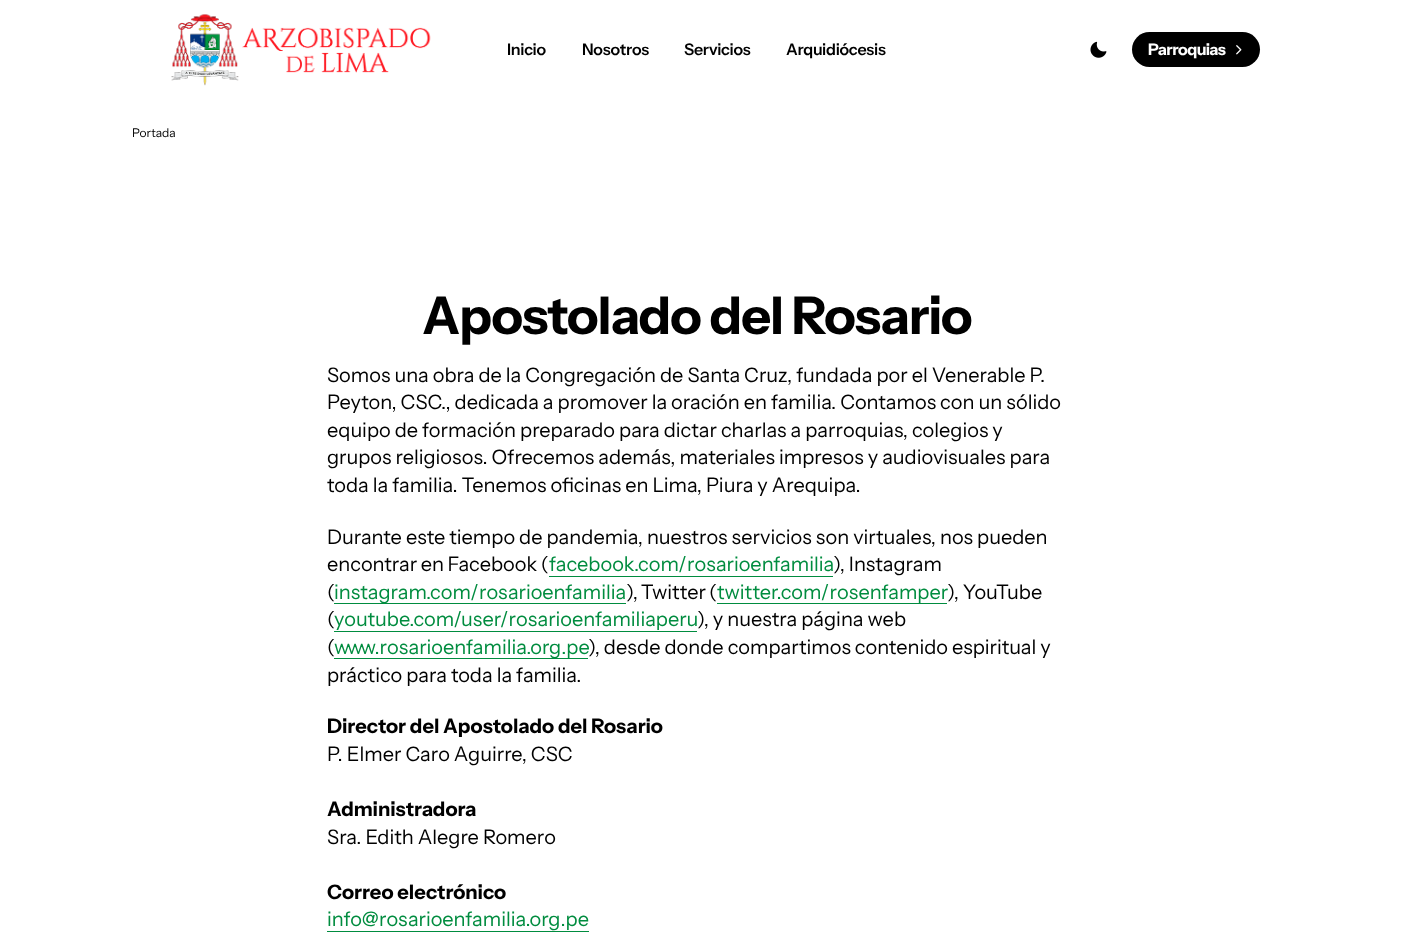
<?xml version="1.0" encoding="UTF-8"?>
<svg xmlns="http://www.w3.org/2000/svg" width="1407" height="945">
    <rect width="100%" height="100%" fill="#FFFFFF"/>
    <image x="171" y="14" width="260" height="72" href="img_01.png"/>
    <text x="507" y="55" font-family="Instrument Sans" font-size="16" font-weight="600" letter-spacing="-0.25" fill="#000000">Inicio</text>
    <text x="582" y="55" font-family="Instrument Sans" font-size="16" font-weight="600" letter-spacing="-0.25" fill="#000000">Nosotros</text>
    <text x="684" y="55" font-family="Instrument Sans" font-size="16" font-weight="600" letter-spacing="-0.25" fill="#000000">Servicios</text>
    <text x="786" y="55" font-family="Instrument Sans" font-size="16" font-weight="600" letter-spacing="-0.25" fill="#000000">Arquidiócesis</text>
    <image x="1090" y="41" width="17" height="17" href="img_02.png"/>
    <rect x="1132" y="32" width="128" height="35" rx="17.5" fill="#000000"/>
    <text x="1148" y="55" font-family="Instrument Sans" font-size="16" font-weight="700" letter-spacing="-0.5" fill="#FFFFFF">Parroquias</text>
    <image x="1236" y="45" width="6" height="10" href="img_03.png"/>
    <text x="132" y="137" font-family="Instrument Sans" font-size="12" fill="#000000">Portada</text>
    <text x="422" y="334" font-family="Instrument Sans" font-size="52" font-weight="700" letter-spacing="-1" fill="#000000">Apostolado del Rosario</text>
    <text font-family="Instrument Sans" font-size="20" fill="#000000">
        <tspan x="327" y="382">Somos una obra de la Congregación de Santa Cruz, fundada por el Venerable P.</tspan>
        <tspan x="327" y="409">Peyton, CSC., dedicada a promover la oración en familia. Contamos con un sólido</tspan>
        <tspan x="327" y="437">equipo de formación preparado para dictar charlas a parroquias, colegios y</tspan>
        <tspan x="327" y="464">grupos religiosos. Ofrecemos además, materiales impresos y audiovisuales para</tspan>
        <tspan x="327" y="492">toda la familia. Tenemos oficinas en Lima, Piura y Arequipa.</tspan>
    </text>
    <text font-family="Instrument Sans" font-size="20" fill="#000000">
        <tspan x="327" y="544">Durante este tiempo de pandemia, nuestros servicios son virtuales, nos pueden</tspan>
        <tspan x="327" y="571" word-spacing="-0.5">encontrar en Facebook (</tspan>
    </text>
    <text x="549" y="571" font-family="Instrument Sans" font-size="20" fill="#008C3F">facebook.com/rosarioenfamilia</text>
    <rect x="549" y="576" width="284" height="1" fill="#008C3F"/>
    <text x="833" y="571" font-family="Instrument Sans" font-size="20" fill="#000000">), Instagram</text>
    <text x="327" y="599" font-family="Instrument Sans" font-size="20" fill="#000000">(</text>
    <rect x="334" y="603" width="292" height="1" fill="#008C3F"/>
    <text x="334" y="599" font-family="Instrument Sans" font-size="20" fill="#008C3F">instagram.com/rosarioenfamilia</text>
    <text x="626" y="599" word-spacing="-1" font-family="Instrument Sans" font-size="20" fill="#000000">), Twitter (</text>
    <rect x="717" y="603" width="230" height="1" fill="#008C3F"/>
    <text x="717" y="599" font-family="Instrument Sans" font-size="20" fill="#008C3F">twitter.com/rosenfamper</text>
    <text x="947" y="599" font-family="Instrument Sans" font-size="20" fill="#000000">), YouTube</text>
    <text x="327" y="626" font-family="Instrument Sans" font-size="20" fill="#000000">(</text>
    <text x="334" y="626" font-family="Instrument Sans" font-size="20" fill="#008C3F">youtube.com/user/rosarioenfamiliaperu</text>
    <rect x="334" y="631" width="363" height="1" fill="#008C3F"/>
    <text x="697" y="626" font-family="Instrument Sans" font-size="20" fill="#000000">), y nuestra página web</text>
    <text x="327" y="654" font-family="Instrument Sans" font-size="20" fill="#000000">(</text>
    <rect x="334" y="658" width="254" height="1" fill="#008C3F"/>
    <text x="334" y="654" font-family="Instrument Sans" font-size="20" fill="#008C3F">www.rosarioenfamilia.org.pe</text>
    <text x="588" y="654" font-family="Instrument Sans" font-size="20" fill="#000000">), desde donde compartimos contenido espiritual y</text>
    <text x="327" y="682" font-family="Instrument Sans" font-size="20" fill="#000000">práctico para toda la familia.</text>
    <text x="327" y="733" font-family="Instrument Sans" font-size="20" font-weight="700" fill="#000000">Director del Apostolado del Rosario</text>
    <text x="327" y="761" font-family="Instrument Sans" font-size="20" fill="#000000">P. Elmer Caro Aguirre, CSC</text>
    <text x="327" y="816" font-family="Instrument Sans" font-size="20" font-weight="700" fill="#000000">Administradora</text>
    <text x="327" y="844" font-family="Instrument Sans" font-size="20" fill="#000000">Sra. Edith Alegre Romero</text>
    <text x="327" y="899" font-family="Instrument Sans" font-size="20" font-weight="700" fill="#000000">Correo electrónico</text>
    <text x="327" y="926" font-family="Instrument Sans" font-size="20" fill="#008C3F">info@rosarioenfamilia.org.pe</text>
    <rect x="327" y="931" width="262" height="1" fill="#008C3F"/>
</svg>
